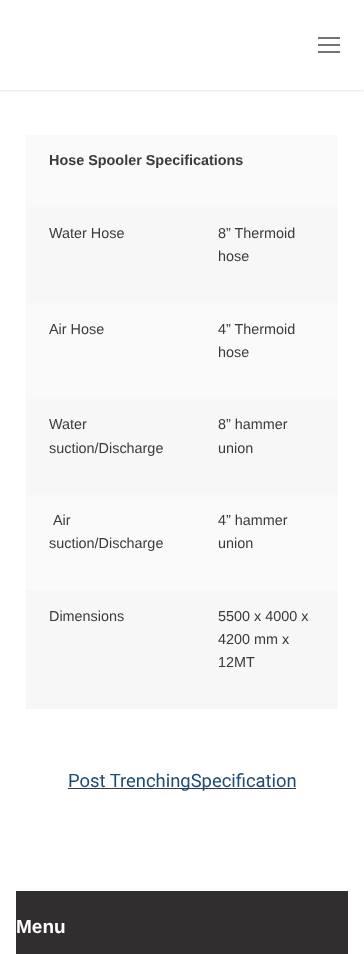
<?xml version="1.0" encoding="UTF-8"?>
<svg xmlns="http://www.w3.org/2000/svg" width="364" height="954">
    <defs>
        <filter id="blur1" x="-50%" y="-200%" width="200%" height="500%"><feGaussianBlur stdDeviation="1"/></filter>
    </defs>
    <rect width="100%" height="100%" fill="#FFFFFF"/>
    <rect x="0" y="1" width="364" height="90" fill="#E1E5EA" filter="url(#blur1)"/>
    <rect x="0" y="0" width="364" height="90" fill="#FFFFFF"/>
    <rect x="318" y="44" width="22" height="2" fill="#737373"/>
    <rect x="318" y="37" width="22" height="2" fill="#737373"/>
    <rect x="318" y="51" width="22" height="2" fill="#737373"/>
    <rect x="26" y="135" width="312" height="72" fill="#FAFAFA"/>
    <text x="49" y="165" font-family="Liberation Sans" font-size="14.4" font-weight="700" fill="#3C3A3A">Hose Spooler Specifications</text>
    <rect x="26" y="207" width="312" height="96" fill="#F7F7F7"/>
    <text x="49" y="238" font-family="Liberation Sans" font-size="14.4" fill="#3C3A3A">Water Hose</text>
    <text font-family="Liberation Sans" font-size="14.4" fill="#3C3A3A">
        <tspan x="218" y="238">8” Thermoid</tspan>
        <tspan x="218" y="261">hose</tspan>
    </text>
    <rect x="26" y="303" width="312" height="96" fill="#FAFAFA"/>
    <text x="49" y="334" font-family="Liberation Sans" font-size="14.4" fill="#3C3A3A">Air Hose</text>
    <text font-family="Liberation Sans" font-size="14.4" fill="#3C3A3A">
        <tspan x="218" y="334">4” Thermoid</tspan>
        <tspan x="218" y="357">hose</tspan>
    </text>
    <rect x="26" y="399" width="312" height="96" fill="#F7F7F7"/>
    <text font-family="Liberation Sans" font-size="14.4" fill="#3C3A3A">
        <tspan x="49" y="429">Water</tspan>
        <tspan x="49" y="453">suction/Discharge</tspan>
    </text>
    <text font-family="Liberation Sans" font-size="14.4" fill="#3C3A3A">
        <tspan x="218" y="429">8” hammer</tspan>
        <tspan x="218" y="453">union</tspan>
    </text>
    <rect x="26" y="495" width="312" height="95" fill="#FAFAFA"/>
    <text x="53" y="525" font-family="Liberation Sans" font-size="14.4" fill="#3C3A3A">Air</text>
    <text x="49" y="548" font-family="Liberation Sans" font-size="14.4" fill="#3C3A3A">suction/Discharge</text>
    <text font-family="Liberation Sans" font-size="14.4" fill="#3C3A3A">
        <tspan x="218" y="525">4” hammer</tspan>
        <tspan x="218" y="548">union</tspan>
    </text>
    <rect x="26" y="590" width="312" height="119" fill="#F7F7F7"/>
    <text x="49" y="621" font-family="Liberation Sans" font-size="14.4" fill="#3C3A3A">Dimensions</text>
    <text font-family="Liberation Sans" font-size="14.4" fill="#3C3A3A">
        <tspan x="218" y="621">5500 x 4000 x</tspan>
        <tspan x="218" y="644">4200 mm x</tspan>
        <tspan x="218" y="667">12MT</tspan>
    </text>
    <rect x="68" y="788" width="228" height="1" fill="#3C3A3A"/>
    <text x="68" y="787" font-family="Roboto" font-size="18.4" fill="#1E4B75">Post TrenchingSpecification</text>
    <rect x="16" y="891" width="332" height="63" fill="#302E2E"/>
    <text x="16" y="933" font-family="Liberation Sans" font-size="19" font-weight="700" fill="#FFFFFF">Menu</text>
</svg>
